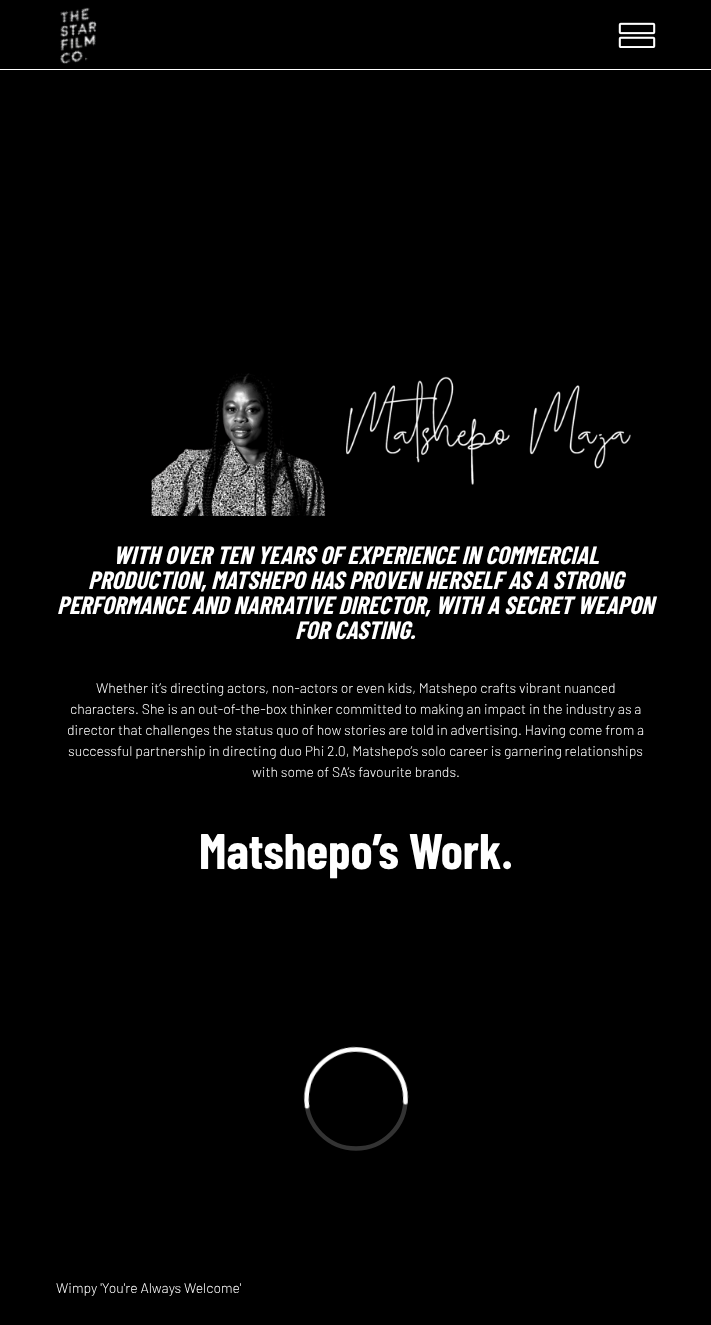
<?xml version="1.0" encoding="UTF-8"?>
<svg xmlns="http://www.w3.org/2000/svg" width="711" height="1325">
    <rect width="100%" height="100%" fill="#000000"/>
    <rect x="0" y="69" width="711" height="1" fill="#FFFFFF"/>
    <image x="60" y="7" width="37" height="57" href="img_01.png"/>
    <image x="618" y="22" width="38" height="26" href="img_02.png"/>
    <image x="151" y="373" width="480" height="143" href="img_03.png"/>
    <text x="113" y="564" font-family="Barlow Condensed" font-size="25" font-weight="700" font-style="italic" fill="#FFFFFF">WITH OVER TEN YEARS OF EXPERIENCE IN COMMERCIAL</text>
    <text x="88" y="589" font-family="Barlow Condensed" font-size="25" font-weight="700" font-style="italic" fill="#FFFFFF">PRODUCTION, MATSHEPO HAS PROVEN HERSELF AS A STRONG</text>
    <text x="57" y="614" font-family="Barlow Condensed" font-size="25" font-weight="700" font-style="italic" fill="#FFFFFF">PERFORMANCE AND NARRATIVE DIRECTOR, WITH A SECRET WEAPON</text>
    <text x="295" y="639" font-family="Barlow Condensed" font-size="25" font-weight="700" font-style="italic" fill="#FFFFFF">FOR CASTING.</text>
    <text x="96" y="693" font-family="Barlow" font-size="14" font-weight="300" fill="#FFFFFF">Whether it’s directing actors, non-actors or even kids, Matshepo crafts vibrant nuanced</text>
    <text x="70" y="714" font-family="Barlow" font-size="14" font-weight="300" fill="#FFFFFF">characters. She is an out-of-the-box thinker committed to making an impact in the industry as a</text>
    <text x="67" y="735" font-family="Barlow" font-size="14" font-weight="300" fill="#FFFFFF">director that challenges the status quo of how stories are told in advertising. Having come from a</text>
    <text x="68" y="756" font-family="Barlow" font-size="14" font-weight="300" fill="#FFFFFF">successful partnership in directing duo Phi 2.0, Matshepo’s solo career is garnering relationships</text>
    <text x="252" y="777" font-family="Barlow" font-size="14" font-weight="300" fill="#FFFFFF">with some of SA’s favourite brands.</text>
    <text x="199" y="869" font-family="Barlow Condensed" font-size="50" font-weight="700" fill="#FFFFFF">Matshepo’s Work.</text>
    <image x="303" y="1046" width="106" height="105" href="img_04.png"/>
    <text x="56" y="1293" font-family="Barlow" font-size="14" font-weight="300" fill="#FFFFFF">Wimpy 'You're Always Welcome'</text>
</svg>
